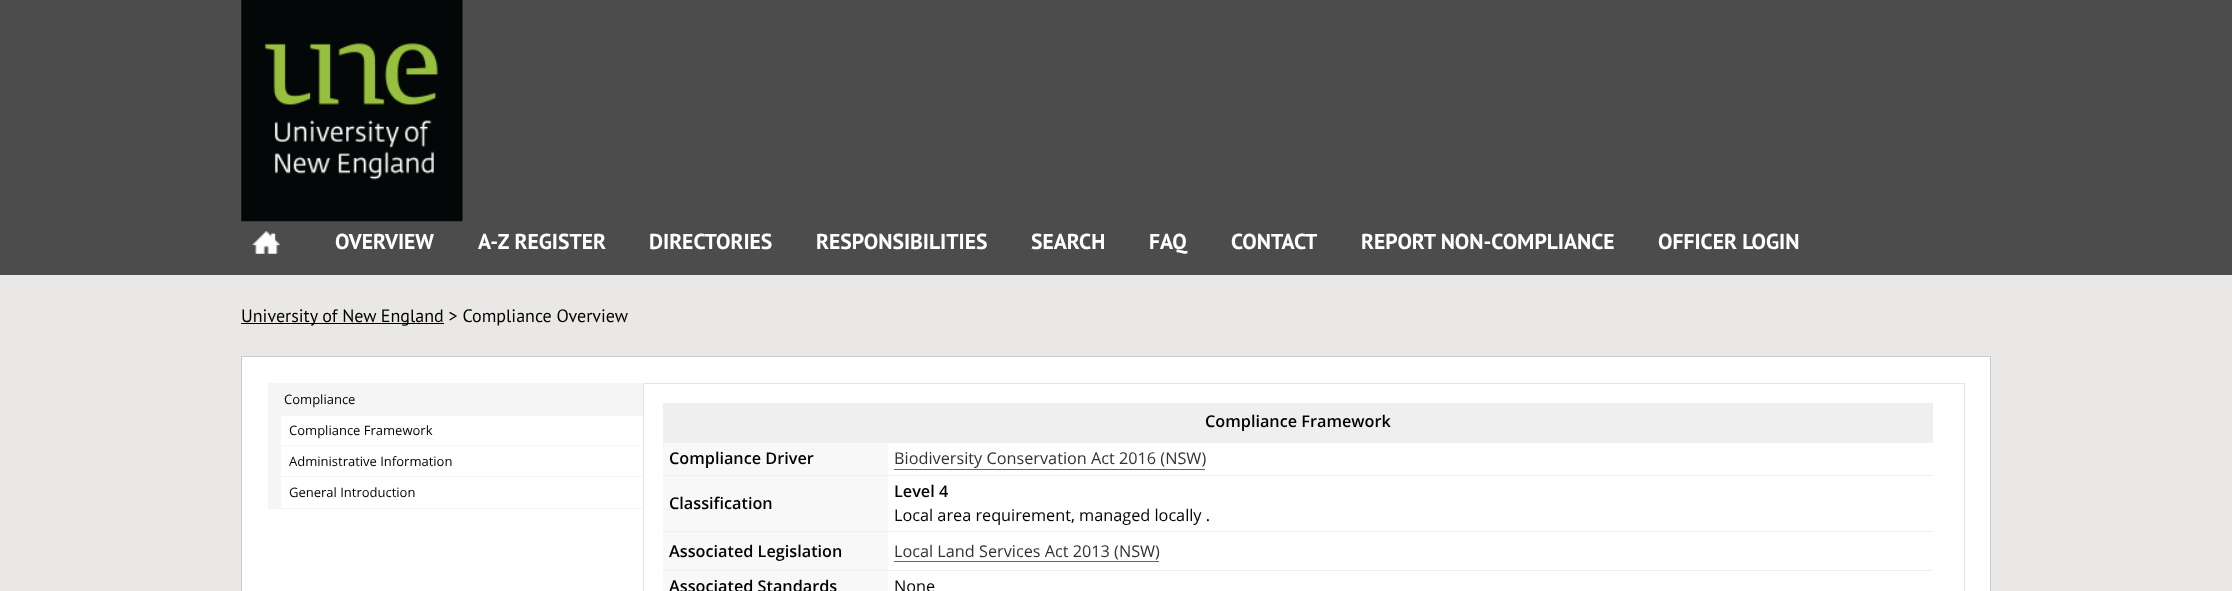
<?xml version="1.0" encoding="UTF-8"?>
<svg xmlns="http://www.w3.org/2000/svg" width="2232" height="591">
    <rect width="100%" height="100%" fill="#E9E8E6"/>
    <rect x="0" y="0" width="2232" height="275" fill="#4C4C4C"/>
    <image x="241" y="0" width="222" height="222" href="img_01.png"/>
    <image x="252" y="231" width="28" height="23" href="img_02.png"/>
    <text x="335" y="249" font-family="PT Sans" font-size="21.6" font-weight="700" fill="#FFFFFF">OVERVIEW</text>
    <text x="478" y="249" font-family="PT Sans" font-size="21.6" font-weight="700" fill="#FFFFFF">A-Z REGISTER</text>
    <text x="649" y="249" font-family="PT Sans" font-size="21.6" font-weight="700" fill="#FFFFFF">DIRECTORIES</text>
    <text x="816" y="249" font-family="PT Sans" font-size="21.6" font-weight="700" fill="#FFFFFF">RESPONSIBILITIES</text>
    <text x="1031" y="249" font-family="PT Sans" font-size="21.6" font-weight="700" fill="#FFFFFF">SEARCH</text>
    <text x="1149" y="249" font-family="PT Sans" font-size="21.6" font-weight="700" fill="#FFFFFF">FAQ</text>
    <text x="1231" y="249" font-family="PT Sans" font-size="21.6" font-weight="700" fill="#FFFFFF">CONTACT</text>
    <text x="1361" y="249" font-family="PT Sans" font-size="21.6" font-weight="700" fill="#FFFFFF">REPORT NON-COMPLIANCE</text>
    <text x="1658" y="249" font-family="PT Sans" font-size="21.6" font-weight="700" fill="#FFFFFF">OFFICER LOGIN</text>
    <rect x="241" y="323" width="203" height="1" fill="#000000"/>
    <text x="241" y="322" font-family="PT Sans" font-size="18" fill="#000000">University of New England &gt; Compliance Overview</text>
    <rect x="241.5" y="356.5" width="1749" height="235" fill="#FFFFFF" stroke="#CCCCCC"/>
    <rect x="268" y="383" width="375" height="126" fill="#F5F5F5"/>
    <text x="284" y="404" font-family="Open Sans" font-size="13" fill="#000000">Compliance</text>
    <rect x="281" y="416" width="362" height="29" fill="#FFFFFF"/>
    <text x="289" y="435" font-family="Open Sans" font-size="13" fill="#000000">Compliance Framework</text>
    <rect x="281" y="446" width="362" height="62" fill="#FFFFFF"/>
    <rect x="280" y="476" width="363" height="1" fill="#F5F5F5"/>
    <text x="289" y="466" font-family="Open Sans" font-size="13" fill="#000000">Administrative Information</text>
    <text x="289" y="497" font-family="Open Sans" font-size="13" fill="#000000">General Introduction</text>
    <rect x="643.5" y="383.5" width="1321" height="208" fill="none" stroke="#E5E5E5"/>
    <rect x="663" y="403" width="1270" height="40" fill="#EFEFEF"/>
    <text x="1205" y="427" font-family="Open Sans" font-size="16.25" font-weight="600" fill="#000000">Compliance Framework</text>
    <rect x="663" y="443" width="225" height="32" fill="#F8F8F8"/>
    <text x="669" y="464" font-family="Open Sans" font-size="16.25" font-weight="600" fill="#000000">Compliance Driver</text>
    <rect x="663" y="475" width="1270" height="1" fill="#F0F0F0"/>
    <text x="894" y="464" font-family="Open Sans" font-size="16.25" fill="#333333">Biodiversity Conservation Act 2016 (NSW)</text>
    <rect x="894" y="469" width="311" height="1" fill="#666666"/>
    <rect x="663" y="476" width="225" height="94" fill="#F8F8F8"/>
    <text x="669" y="509" font-family="Open Sans" font-size="16.25" font-weight="600" fill="#000000">Classification</text>
    <rect x="663" y="531" width="1270" height="1" fill="#F0F0F0"/>
    <text x="894" y="497" font-family="Open Sans" font-size="16.25" font-weight="600" fill="#000000">Level 4</text>
    <text x="894" y="521" font-family="Open Sans" font-size="16.25" fill="#000000">Local area requirement, managed locally .</text>
    <text x="669" y="557" font-family="Open Sans" font-size="16.25" font-weight="600" fill="#000000">Associated Legislation</text>
    <rect x="663" y="570" width="1270" height="1" fill="#F0F0F0"/>
    <text x="894" y="557" font-family="Open Sans" font-size="16.25" fill="#333333">Local Land Services Act 2013 (NSW)</text>
    <rect x="894" y="561" width="265" height="1" fill="#666666"/>
    <rect x="663" y="571" width="225" height="20" fill="#F8F8F8"/>
    <text x="669" y="592" font-family="Open Sans" font-size="16.25" font-weight="600" fill="#000000">Associated Standards</text>
    <text x="894" y="592" font-family="Open Sans" font-size="16.25" fill="#000000">None</text>
</svg>
